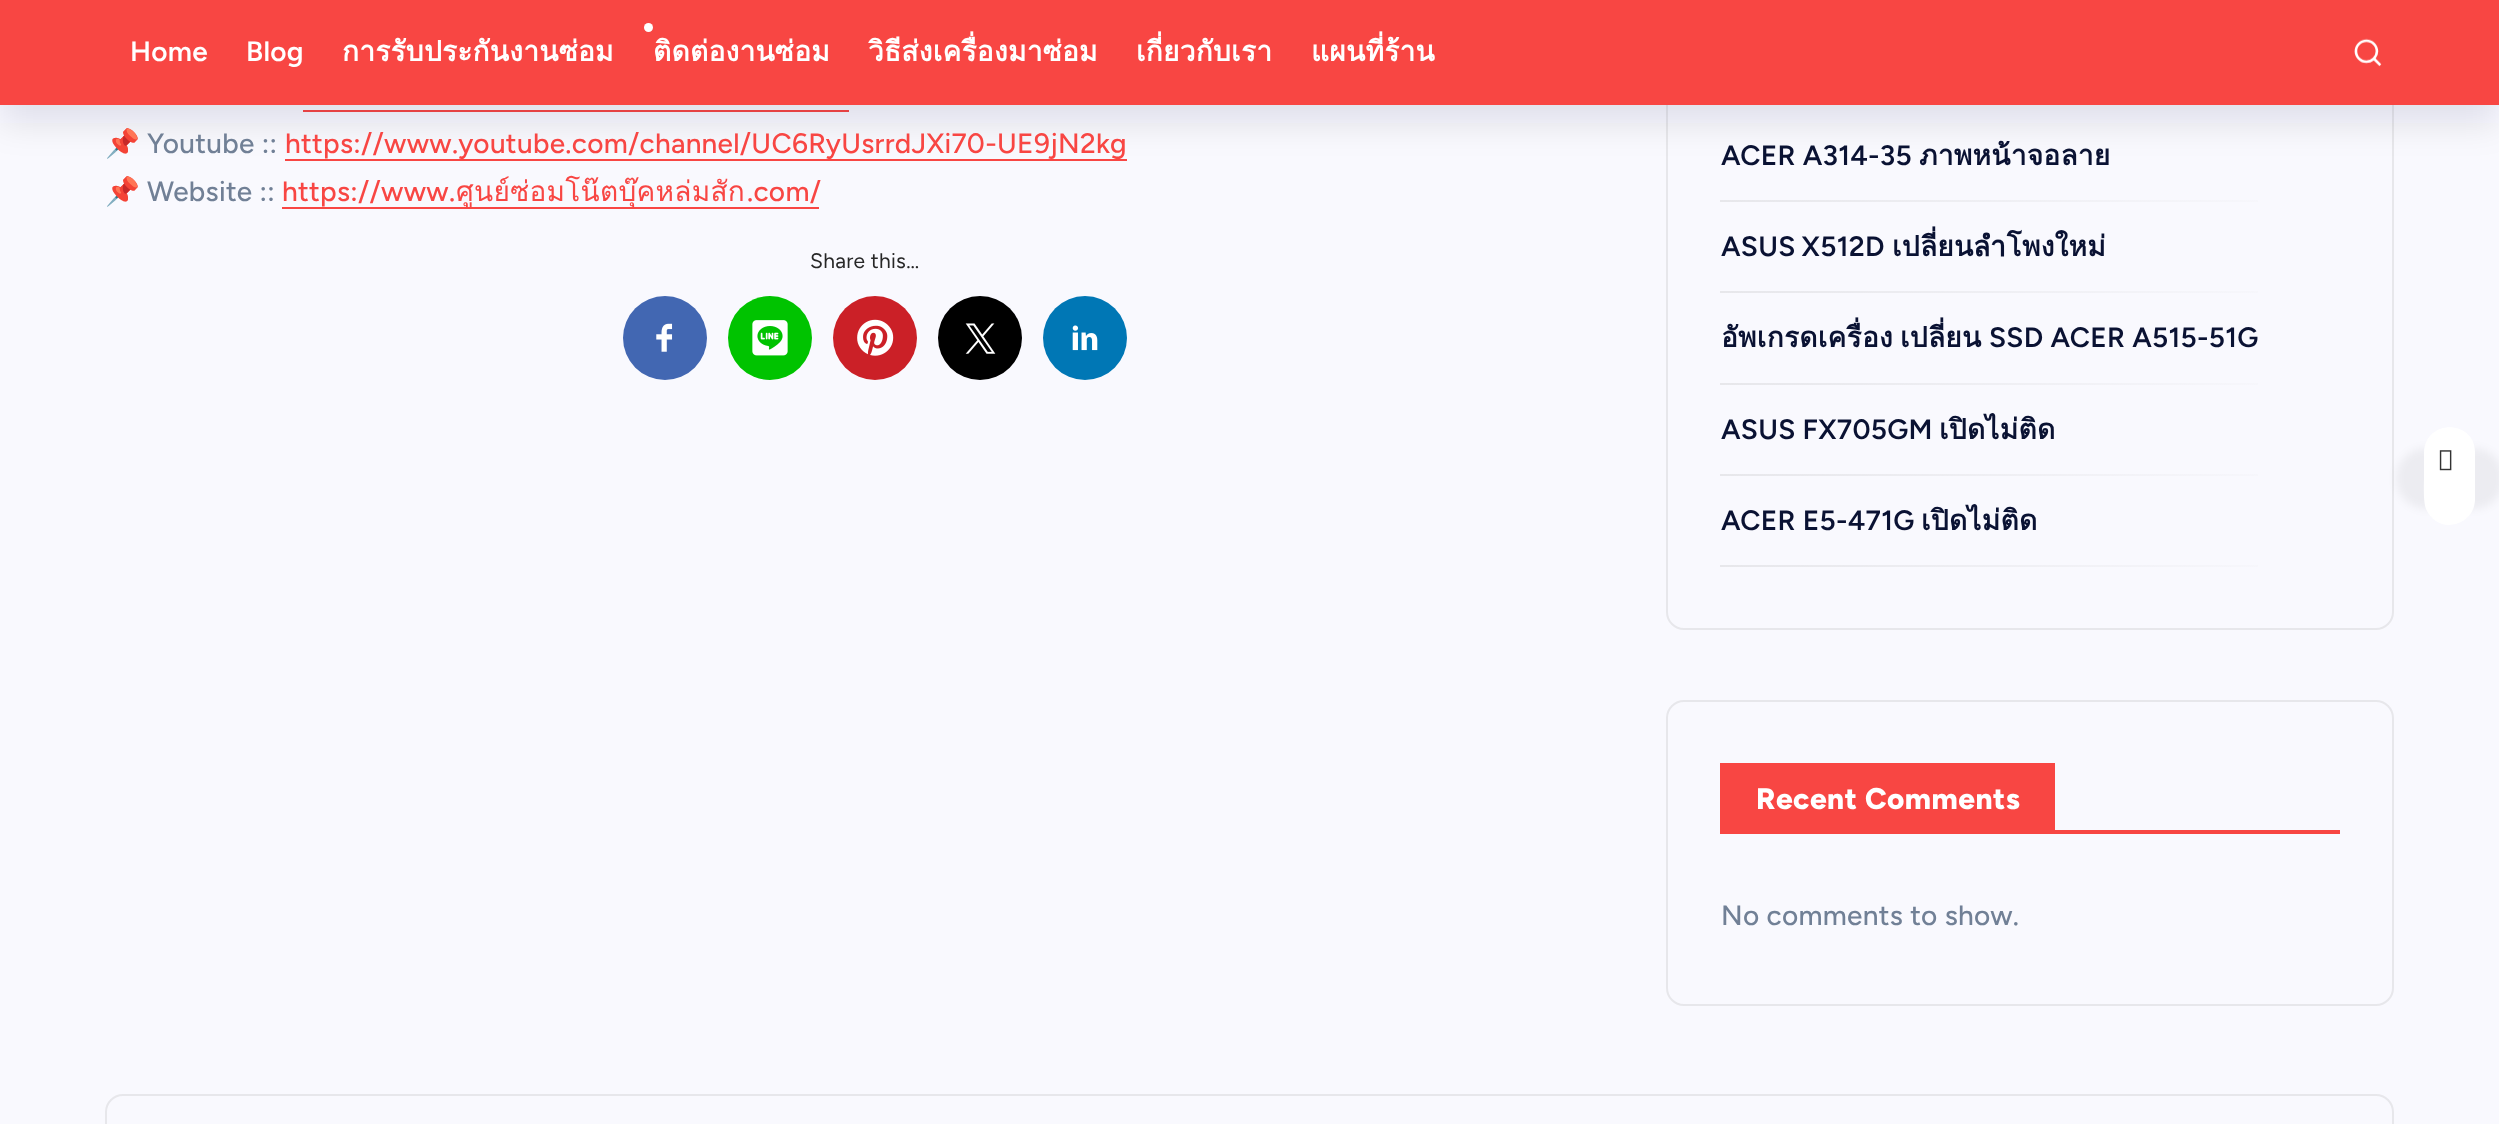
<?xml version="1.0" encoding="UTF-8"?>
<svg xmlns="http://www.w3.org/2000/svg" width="2499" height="1124">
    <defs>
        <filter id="blur1" x="-50%" y="-200%" width="200%" height="500%"><feGaussianBlur stdDeviation="17.5"/></filter>
        <linearGradient id="g1" gradientUnits="userSpaceOnUse" x1="1720" y1="200" x2="2340" y2="200"><stop offset="0" stop-color="#E7E7EB"/><stop offset="1" stop-color="#F9F9FE"/></linearGradient>
        <linearGradient id="g2" gradientUnits="userSpaceOnUse" x1="1720" y1="291" x2="2340" y2="291"><stop offset="0" stop-color="#E7E7EB"/><stop offset="1" stop-color="#F9F9FE"/></linearGradient>
        <clipPath id="clip1"><rect x="1720" y="2" width="620" height="565"/></clipPath>
        <linearGradient id="g3" gradientUnits="userSpaceOnUse" x1="1720" y1="384" x2="2340" y2="384"><stop offset="0" stop-color="#E7E7EB"/><stop offset="1" stop-color="#F9F9FE"/></linearGradient>
        <linearGradient id="g4" gradientUnits="userSpaceOnUse" x1="1720" y1="475" x2="2340" y2="475"><stop offset="0" stop-color="#E7E7EB"/><stop offset="1" stop-color="#F9F9FE"/></linearGradient>
        <linearGradient id="g5" gradientUnits="userSpaceOnUse" x1="1720" y1="566" x2="2340" y2="566"><stop offset="0" stop-color="#E7E7EB"/><stop offset="1" stop-color="#F9F9FE"/></linearGradient>
        <filter id="blur2" x="-50%" y="-200%" width="200%" height="500%"><feGaussianBlur stdDeviation="4.5"/></filter>
    </defs>
    <rect width="100%" height="100%" fill="#F9F9FE"/>
    <rect x="303" y="110" width="546" height="2" fill="#F84643"/>
    <rect x="285" y="159" width="842" height="2" fill="#F84643"/>
    <rect x="1667" y="-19" width="726" height="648" rx="17" fill="none" stroke="#E7E7EB" stroke-width="2"/>
    <rect x="0" y="18" width="2499" height="105" fill="#1B182F" fill-opacity="0.1" filter="url(#blur1)"/>
    <rect x="0" y="0" width="2499" height="105" fill="#F84643"/>
    <text x="130" y="61" font-family="Figtree" font-size="28" font-weight="600" letter-spacing="0.28" fill="#FFFFFF">Home</text>
    <text x="246" y="61" font-family="Figtree" font-size="28" font-weight="600" letter-spacing="0.28" fill="#FFFFFF">Blog</text>
    <text x="342" y="61" font-family="Loma" font-size="28" font-weight="700" letter-spacing="0.28" fill="#FFFFFF">การรับประกันงานซ่อม</text>
    <circle cx="648.5" cy="27.5" r="4.5" fill="#FFFFFF"/>
    <text x="653" y="61" font-family="Loma" font-size="28" font-weight="700" letter-spacing="0.28" fill="#FFFFFF">ติดต่องานซ่อม</text>
    <text x="868" y="61" font-family="Loma" font-size="28" font-weight="700" letter-spacing="0.28" fill="#FFFFFF">วิธีส่งเครื่องมาซ่อม</text>
    <text x="1136" y="61" font-family="Loma" font-size="28" font-weight="700" letter-spacing="0.28" fill="#FFFFFF">เกี่ยวกับเรา</text>
    <text x="1311" y="61" font-family="Loma" font-size="28" font-weight="700" letter-spacing="0.28" fill="#FFFFFF">แผนที่ร้าน</text>
    <image x="2354" y="38" width="28" height="29" href="img_01.png"/>
    <text x="105" y="153" font-family="Noto Color Emoji" font-size="28" letter-spacing="0.28" fill="#718096">📌</text>
    <text x="147" y="153" font-family="Figtree" font-size="28" font-weight="500" letter-spacing="0.28" fill="#718096">Youtube ::</text>
    <text x="285" y="153" font-family="Figtree" font-size="28" font-weight="500" letter-spacing="0.28" fill="#F84643">https://www.youtube.com/channel/UC6RyUsrrdJXi70-UE9jN2kg</text>
    <text x="105" y="201" font-family="Noto Color Emoji" font-size="28" letter-spacing="0.28" fill="#718096">📌</text>
    <text x="147" y="201" font-family="Figtree" font-size="28" font-weight="500" letter-spacing="0.28" fill="#718096">Website ::</text>
    <text x="282" y="201" font-family="Figtree" font-size="28" font-weight="500" letter-spacing="0.28" fill="#F84643">https://www.</text>
    <rect x="282" y="207" width="537" height="2" fill="#F84643"/>
    <text x="456" y="201" font-family="Loma" font-size="28" letter-spacing="0.28" fill="#F84643">ศูนย์ซ่อมโน๊ตบุ๊คหล่มสัก</text>
    <text x="747" y="201" font-family="Figtree" font-size="28" font-weight="500" letter-spacing="0.28" fill="#F84643">.com/</text>
    <text x="810" y="268" font-family="Figtree" font-size="21" letter-spacing="0.28" fill="#272727">Share this…</text>
    <circle cx="665" cy="338" r="42" fill="#4267B2"/>
    <image x="656" y="323" width="17" height="29" href="img_02.png"/>
    <circle cx="770" cy="338" r="42" fill="#00C300"/>
    <image x="752" y="320" width="36" height="36" href="img_03.png"/>
    <circle cx="875" cy="338" r="42" fill="#CB2027"/>
    <image x="857" y="319" width="37" height="37" href="img_04.png"/>
    <circle cx="980" cy="338" r="42" fill="#000000"/>
    <image x="965" y="323" width="31" height="31" href="img_05.png"/>
    <circle cx="1085" cy="338" r="42" fill="#0077B5"/>
    <image x="1072" y="325" width="26" height="26" href="img_06.png"/>
    <text x="1721" y="165" font-family="Figtree" font-size="28" font-weight="600" letter-spacing="0.28" fill="#0A1233">ACER A314-35</text>
    <text x="1919" y="165" font-family="Loma" font-size="28" font-weight="700" letter-spacing="0.28" fill="#0A1233">ภาพหน้าจอลาย</text>
    <rect x="1720" y="200" width="538" height="2" fill="url(#g1)"/>
    <text x="1721" y="256" word-spacing="-1" font-family="Figtree" font-size="28" font-weight="600" letter-spacing="0.28" fill="#0A1233">ASUS X512D</text>
    <text x="1892" y="256" font-family="Loma" font-size="28" font-weight="700" letter-spacing="0.28" fill="#0A1233">เปลี่ยนลำโพงใหม่</text>
    <rect x="1720" y="291" width="538" height="2" fill="url(#g2)"/>
    <g clip-path="url(#clip1)">
        <text x="1721" y="347" font-family="Loma" font-size="28" font-weight="700" letter-spacing="0.28" fill="#0A1233">อัพเกรดเครื่อง</text>
    </g>
    <text x="1900" y="347" font-family="Loma" font-size="28" font-weight="700" letter-spacing="0.28" fill="#0A1233">เปลี่ยน</text>
    <text x="1989" y="347" font-family="Figtree" font-size="28" font-weight="600" letter-spacing="0.28" fill="#0A1233">SSD ACER A515-51G</text>
    <rect x="1720" y="383" width="538" height="2" fill="url(#g3)"/>
    <text x="1721" y="439" font-family="Figtree" font-size="28" font-weight="600" letter-spacing="0.28" fill="#0A1233">ASUS FX705GM</text>
    <text x="1939" y="439" font-family="Loma" font-size="28" font-weight="700" letter-spacing="0.28" fill="#0A1233">เปิดไม่ติด</text>
    <rect x="1720" y="474" width="538" height="2" fill="url(#g4)"/>
    <text x="1721" y="530" font-family="Figtree" font-size="28" font-weight="600" letter-spacing="0.28" fill="#0A1233">ACER E5-471G</text>
    <text x="1921" y="530" font-family="Loma" font-size="28" font-weight="700" letter-spacing="0.28" fill="#0A1233">เปิดไม่ติด</text>
    <rect x="1720" y="565" width="538" height="2" fill="url(#g5)"/>
    <rect x="1667" y="701" width="726" height="304" rx="17" fill="none" stroke="#E7E7EB" stroke-width="2"/>
    <rect x="1720" y="763" width="335" height="67" fill="#F84643"/>
    <text x="1756" y="809" font-family="Figtree" font-size="29.75" font-weight="800" letter-spacing="0.5" fill="#FFFFFF">Recent Comments</text>
    <rect x="1720" y="830" width="620" height="4" fill="#F84643"/>
    <text x="1721" y="925" font-family="Figtree" font-size="28" font-weight="500" letter-spacing="0.28" fill="#718096">No comments to show.</text>
    <rect x="106" y="1095" width="2287" height="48" rx="17" fill="none" stroke="#E7E7EB" stroke-width="2"/>
    <rect x="2396" y="448" width="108" height="61" rx="30.5" fill="#000000" fill-opacity="0.05" filter="url(#blur2)"/>
    <path d="M 2475 452 V 500 C 2474 527 2437 535 2426 509 C 2423 501 2424 485 2424 476 V 452 C 2426 418 2475 420 2475 452 Z" fill="#FFFFFF"/>
    <image x="2439" y="450" width="13" height="21" href="img_07.png"/>
</svg>
